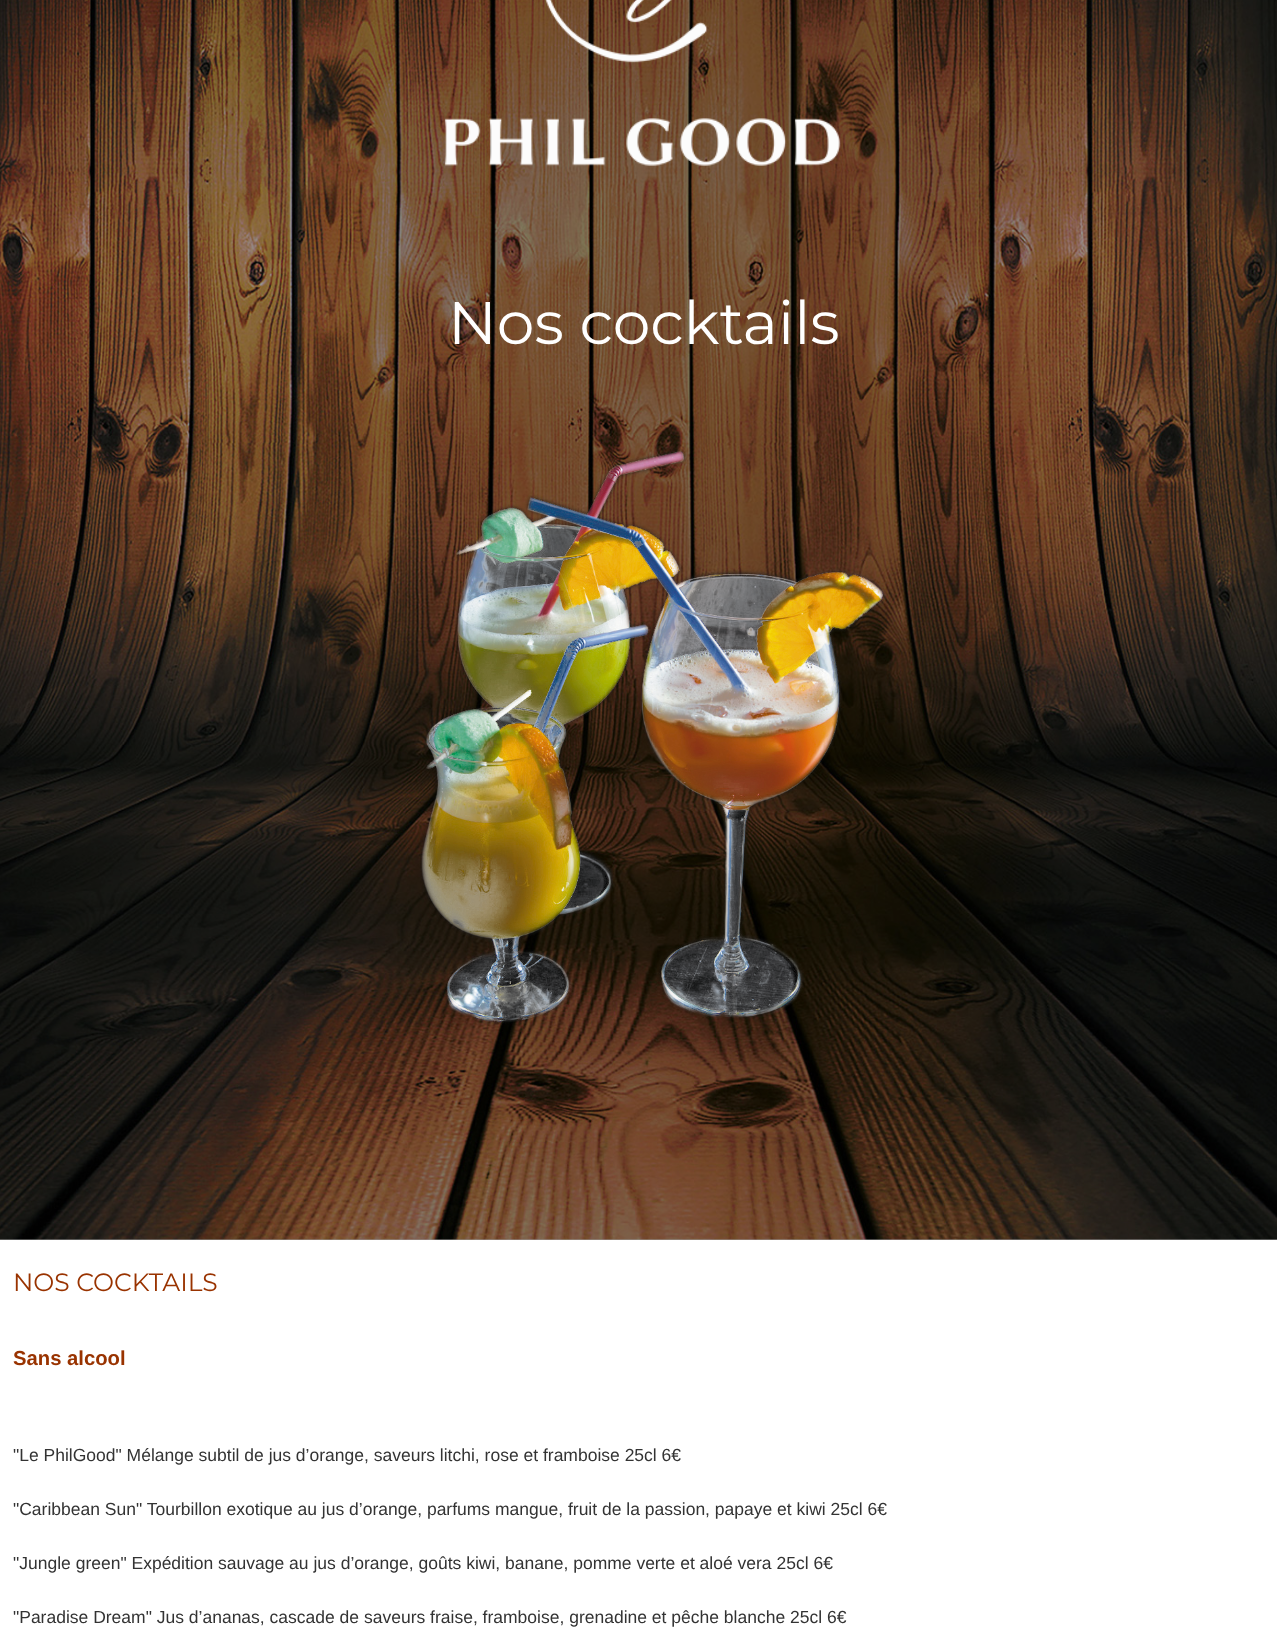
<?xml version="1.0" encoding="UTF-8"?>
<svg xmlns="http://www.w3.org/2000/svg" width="1277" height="1627">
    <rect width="100%" height="100%" fill="#FFFFFF"/>
    <rect x="0" y="1239" width="1277" height="1" fill="#999999"/>
    <image x="0" y="0" width="1277" height="1240" href="img_01.png"/>
    <image x="444" y="0" width="397" height="166" href="img_02.png"/>
    <text x="448" y="344" font-family="Montserrat" font-size="60" font-weight="100" fill="#FFFFFF">Nos cocktails</text>
    <image x="420" y="449" width="466" height="576" href="img_03.png"/>
    <text x="13" y="1291" font-family="Montserrat" font-size="25" font-weight="100" fill="#993300">NOS COCKTAILS</text>
    <text x="13" y="1365" font-family="Liberation Sans" font-size="20.25" font-weight="700" fill="#993300">Sans alcool</text>
    <text x="13" y="1461" font-family="Liberation Sans" font-size="17.5" fill="#333333">"Le PhilGood" Mélange subtil de jus d’orange, saveurs litchi, rose et framboise 25cl 6€</text>
    <text x="13" y="1515" font-family="Liberation Sans" font-size="17.5" fill="#333333">"Caribbean Sun" Tourbillon exotique au jus d’orange, parfums mangue, fruit de la passion, papaye et kiwi 25cl 6€</text>
    <text x="13" y="1569" font-family="Liberation Sans" font-size="17.5" fill="#333333">"Jungle green" Expédition sauvage au jus d’orange, goûts kiwi, banane, pomme verte et aloé vera 25cl 6€</text>
    <text x="13" y="1623" font-family="Liberation Sans" font-size="17.5" fill="#333333">"Paradise Dream" Jus d’ananas, cascade de saveurs fraise, framboise, grenadine et pêche blanche 25cl 6€</text>
</svg>
